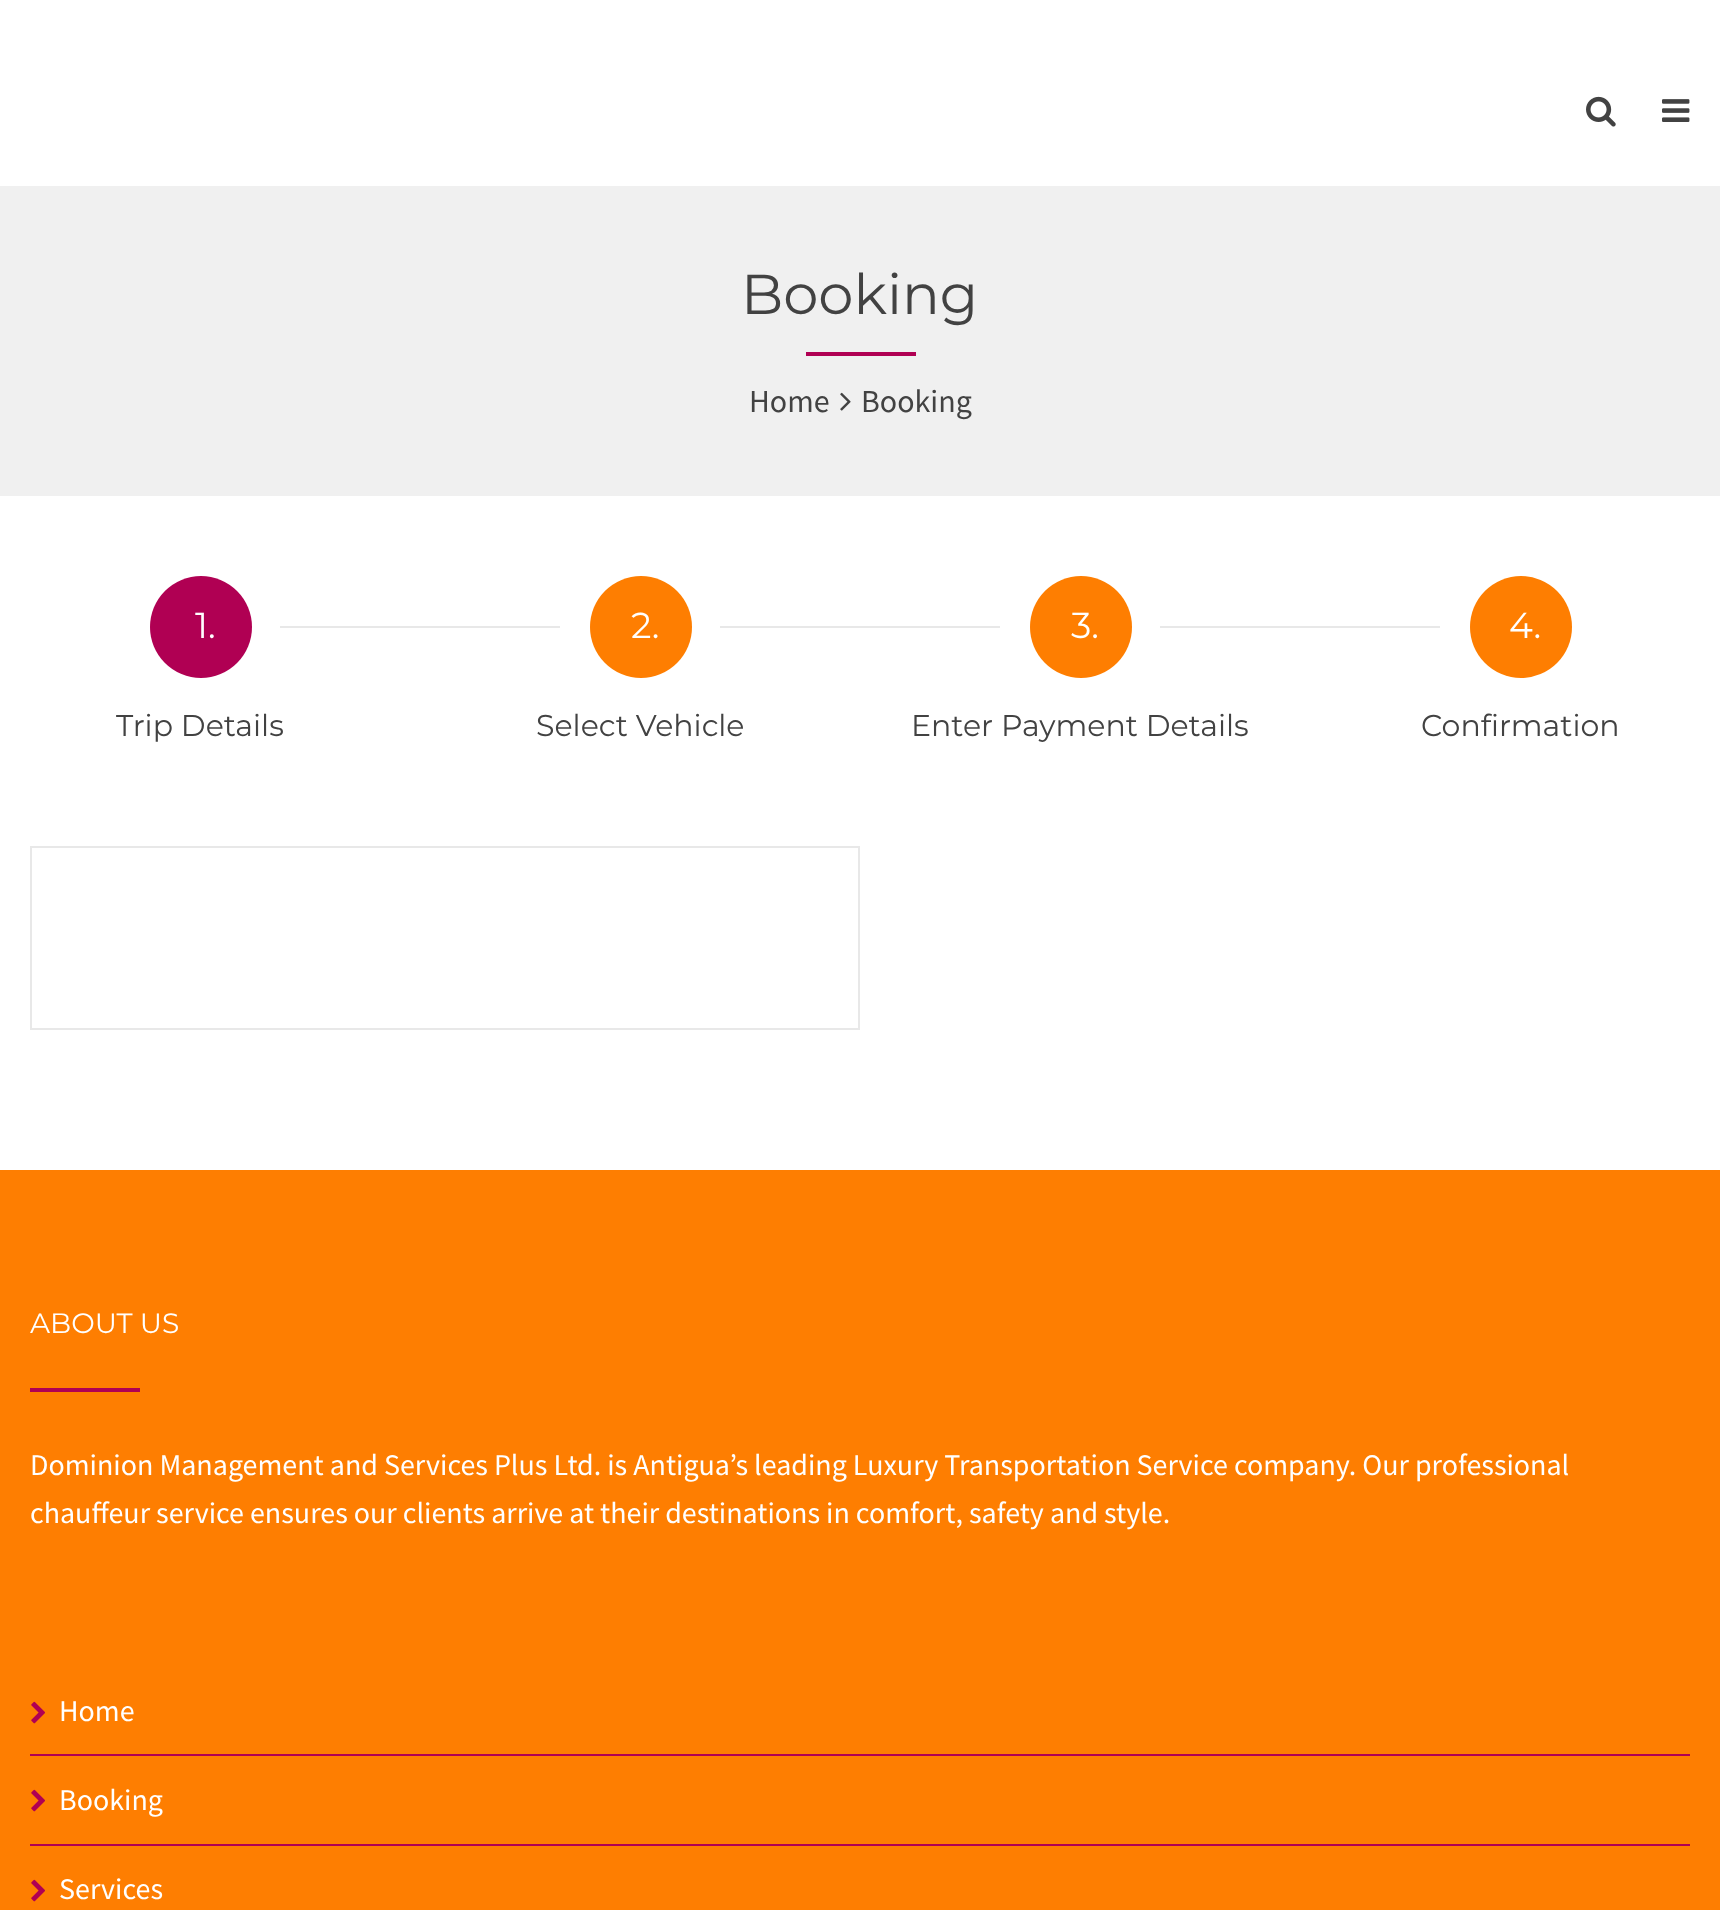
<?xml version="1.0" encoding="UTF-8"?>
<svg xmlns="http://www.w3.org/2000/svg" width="1720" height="1910">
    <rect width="100%" height="100%" fill="#FFFFFF"/>
    <image x="1586" y="96" width="30" height="31" href="img_01.png"/>
    <image x="1662" y="99" width="28" height="23" href="img_02.png"/>
    <rect x="0" y="186" width="1720" height="310" fill="#F0F0F0"/>
    <text x="741" y="314" font-family="Montserrat" font-size="56" fill="#424242">Booking</text>
    <rect x="806" y="352" width="110" height="4" fill="#B00053"/>
    <text x="749" y="412" font-family="Source Sans Pro" font-size="32" fill="#424242">Home</text>
    <image x="840" y="392" width="11" height="19" href="img_03.png"/>
    <text x="861" y="412" font-family="Source Sans Pro" font-size="32" fill="#424242">Booking</text>
    <circle cx="201" cy="627" r="51" fill="#B00053"/>
    <text x="195" y="638" font-family="Montserrat" font-size="36" fill="#FFFFFF">1.</text>
    <text x="116" y="736" font-family="Montserrat" font-size="30" fill="#424242">Trip Details</text>
    <rect x="280" y="626" width="1160" height="2" fill="#E8E8E8"/>
    <rect x="560" y="626" width="160" height="2" fill="#FFFFFF"/>
    <circle cx="641" cy="627" r="51" fill="#FE7E01"/>
    <text x="631" y="638" font-family="Montserrat" font-size="36" fill="#FFFFFF">2.</text>
    <text x="536" y="736" font-family="Montserrat" font-size="30" fill="#424242">Select Vehicle</text>
    <rect x="1000" y="626" width="160" height="2" fill="#FFFFFF"/>
    <circle cx="1081" cy="627" r="51" fill="#FE7E01"/>
    <text x="1071" y="638" font-family="Montserrat" font-size="36" fill="#FFFFFF">3.</text>
    <text x="911" y="736" font-family="Montserrat" font-size="30" fill="#424242">Enter Payment Details</text>
    <circle cx="1521" cy="627" r="51" fill="#FE7E01"/>
    <text x="1509" y="638" font-family="Montserrat" font-size="36" fill="#FFFFFF">4.</text>
    <text x="1421" y="736" font-family="Montserrat" font-size="30" fill="#424242">Confirmation</text>
    <rect x="31" y="847" width="828" height="182" fill="none" stroke="#E8E8E8" stroke-width="2"/>
    <rect x="0" y="1170" width="1720" height="740" fill="#FE7E01"/>
    <text x="30" y="1333" font-family="Montserrat" font-size="28" fill="#FFFFFF">ABOUT US</text>
    <rect x="30" y="1388" width="110" height="4" fill="#B00053"/>
    <text font-family="Source Sans Pro" font-size="30" fill="#FFFFFF">
        <tspan x="30" y="1475">Dominion Management and Services Plus Ltd. is Antigua’s leading Luxury Transportation Service company. Our professional</tspan>
        <tspan x="30" y="1523">chauffeur service ensures our clients arrive at their destinations in comfort, safety and style.</tspan>
    </text>
    <rect x="30" y="1754" width="1660" height="2" fill="#B00053"/>
    <image x="31" y="1701" width="14" height="23" href="img_04.png"/>
    <text x="59" y="1721" font-family="Source Sans Pro" font-size="30" fill="#FFFFFF">Home</text>
    <rect x="30" y="1844" width="1660" height="2" fill="#B00053"/>
    <image x="31" y="1789" width="14" height="23" href="img_04.png"/>
    <text x="59" y="1810" font-family="Source Sans Pro" font-size="30" fill="#FFFFFF">Booking</text>
    <image x="31" y="1879" width="14" height="23" href="img_04.png"/>
    <text x="59" y="1899" font-family="Source Sans Pro" font-size="30" fill="#FFFFFF">Services</text>
</svg>
